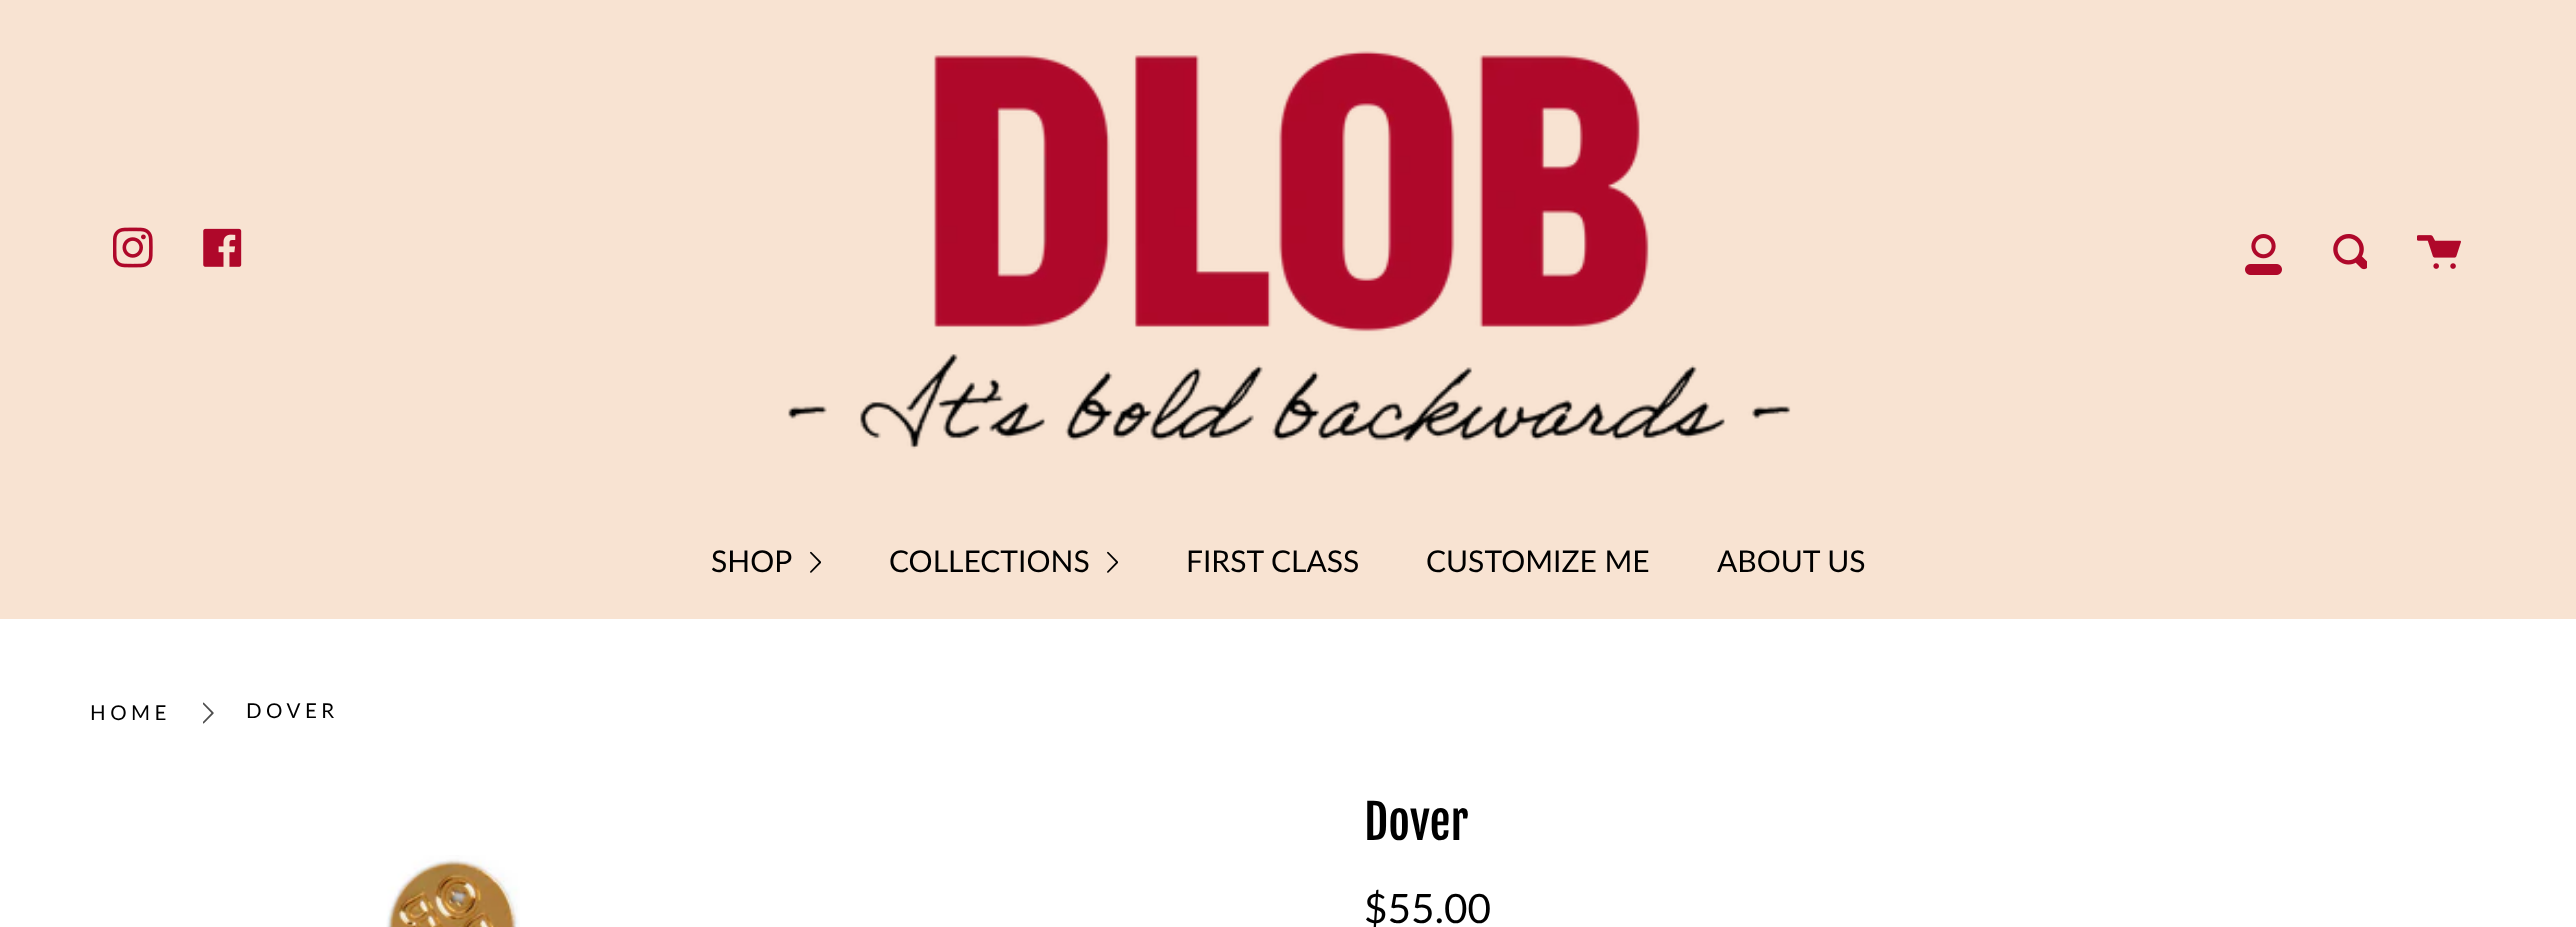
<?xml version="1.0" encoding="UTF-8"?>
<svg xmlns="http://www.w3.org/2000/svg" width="2576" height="927">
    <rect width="100%" height="100%" fill="#FFFFFF"/>
    <rect x="0" y="617" width="2576" height="2" fill="#F8E3D2"/>
    <rect x="0" y="0" width="2576" height="617" fill="#F8E3D2"/>
    <image x="113" y="227" width="40" height="41" href="img_01.png"/>
    <image x="203" y="228" width="39" height="39" href="img_02.png"/>
    <image x="788" y="50" width="1003" height="399" href="img_03.png"/>
    <image x="2245" y="234" width="37" height="41" href="img_04.png"/>
    <image x="2333" y="234" width="34" height="36" href="img_05.png"/>
    <image x="2417" y="235" width="44" height="34" href="img_06.png"/>
    <text x="711" y="572" font-family="Lato" font-size="30" fill="#000000">SHOP</text>
    <image x="810" y="551" width="11" height="22" href="img_07.png"/>
    <text x="889" y="572" font-family="Lato" font-size="30" fill="#000000">COLLECTIONS</text>
    <image x="1107" y="551" width="11" height="22" href="img_07.png"/>
    <text x="1186" y="572" font-family="Lato" font-size="30" fill="#000000">FIRST CLASS</text>
    <text x="1426" y="572" font-family="Lato" font-size="30" fill="#000000">CUSTOMIZE ME</text>
    <text x="1717" y="572" font-family="Lato" font-size="30" fill="#000000">ABOUT US</text>
    <text x="90" y="720" font-family="Lato" font-size="20.5" letter-spacing="4.5" fill="#000000">HOME</text>
    <image x="203" y="702" width="11" height="22" href="img_08.png"/>
    <text x="246" y="718" font-family="Lato" font-size="20.5" letter-spacing="4.5" fill="#000000">DOVER</text>
    <image x="386" y="855" width="134" height="72" href="img_09.png"/>
    <text x="1364" y="840" font-family="Fjalla One" font-size="47" fill="#000000">Dover</text>
    <text x="1364" y="923" font-family="Lato" font-size="40.5" fill="#000000">$55.00</text>
</svg>
